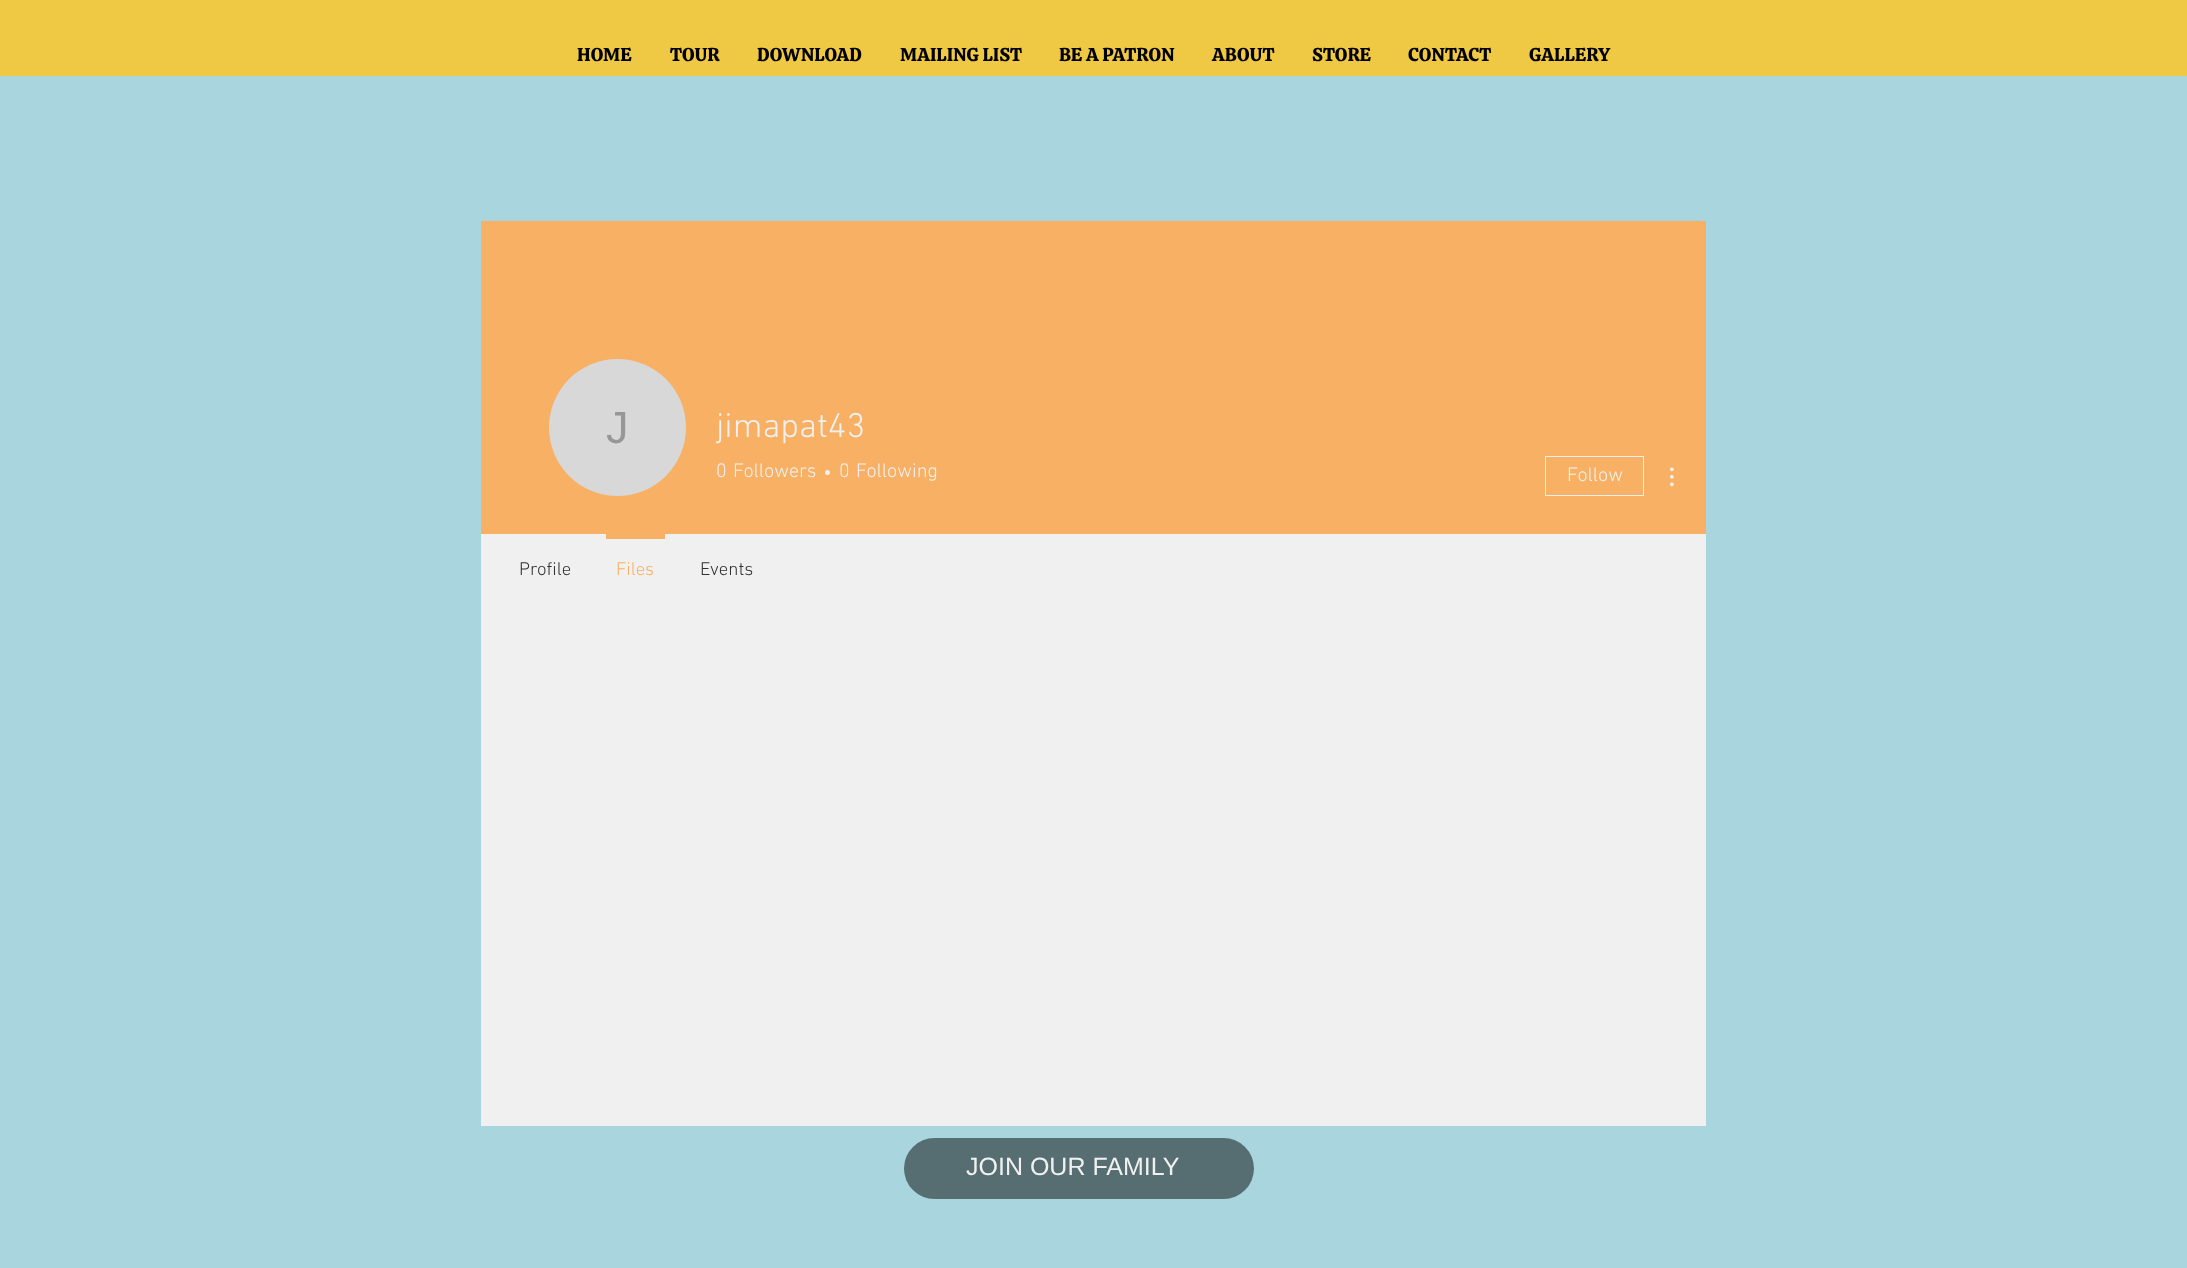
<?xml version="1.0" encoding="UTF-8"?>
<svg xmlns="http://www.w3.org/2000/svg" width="2187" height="1268">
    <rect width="100%" height="100%" fill="#A8D5DE"/>
    <rect x="0" y="0" width="2187" height="76" fill="#EFC944"/>
    <text x="577" y="61" font-family="Calistoga" font-size="18.75" fill="#000000">HOME</text>
    <text x="670" y="61" font-family="Calistoga" font-size="18.75" fill="#000000">TOUR</text>
    <text x="757" y="61" font-family="Calistoga" font-size="18.75" fill="#000000">DOWNLOAD</text>
    <text x="900" y="61" font-family="Calistoga" font-size="18.75" fill="#000000">MAILING LIST</text>
    <text x="1059" y="61" font-family="Calistoga" font-size="18.75" fill="#000000">BE A PATRON</text>
    <text x="1212" y="61" font-family="Calistoga" font-size="18.75" fill="#000000">ABOUT</text>
    <text x="1312" y="61" font-family="Calistoga" font-size="18.75" fill="#000000">STORE</text>
    <text x="1408" y="61" font-family="Calistoga" font-size="18.75" fill="#000000">CONTACT</text>
    <text x="1529" y="61" font-family="Calistoga" font-size="18.75" fill="#000000">GALLERY</text>
    <rect x="481" y="221" width="1225" height="313" fill="#F8B064"/>
    <circle cx="617.5" cy="427.5" r="68.5" fill="#D8D8D8"/>
    <text x="606" y="443" font-family="Liberation Sans" font-size="45" fill="#979797">J</text>
    <text x="716" y="437" font-family="'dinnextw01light'" font-size="35" font-weight="300" fill="#F0F0F0">jimapat43</text>
    <text x="716" y="477" font-family="'dinnextw01light'" font-size="20" font-weight="300" fill="#F0F0F0">0</text>
    <text x="733" y="477" font-family="'dinnextw01light'" font-size="20" font-weight="300" fill="#F0F0F0">Followers</text>
    <circle cx="827.5" cy="472.5" r="2.5" fill="#F0F0F0"/>
    <text x="839" y="477" font-family="'dinnextw01light'" font-size="20" font-weight="300" fill="#F0F0F0">0</text>
    <text x="856" y="477" font-family="'dinnextw01light'" font-size="20" font-weight="300" fill="#F0F0F0">Following</text>
    <rect x="1545.5" y="456.5" width="98" height="39" fill="none" stroke="#F0F0F0"/>
    <text x="1567" y="481" font-family="'dinnextw01light'" font-size="20" font-weight="300" fill="#F0F0F0">Follow</text>
    <image x="1670" y="467" width="4" height="20" href="img_01.png"/>
    <rect x="481" y="534" width="1225" height="592" fill="#F0F0F0"/>
    <text x="519" y="575" font-family="'dinnextw01light'" font-size="18.75" font-weight="300" fill="#303030">Profile</text>
    <rect x="606" y="534" width="59" height="5" fill="#F8B064"/>
    <text x="616" y="575" font-family="'dinnextw01light'" font-size="18.75" font-weight="300" fill="#F8B064">Files</text>
    <text x="700" y="575" font-family="'dinnextw01light'" font-size="18.75" font-weight="300" fill="#303030">Events</text>
    <rect x="904" y="1138" width="350" height="61" rx="30.5" fill="#566D71"/>
    <text x="966" y="1175" font-family="Liberation Sans" font-size="25" fill="#F0F0F0">JOIN OUR FAMILY</text>
</svg>
